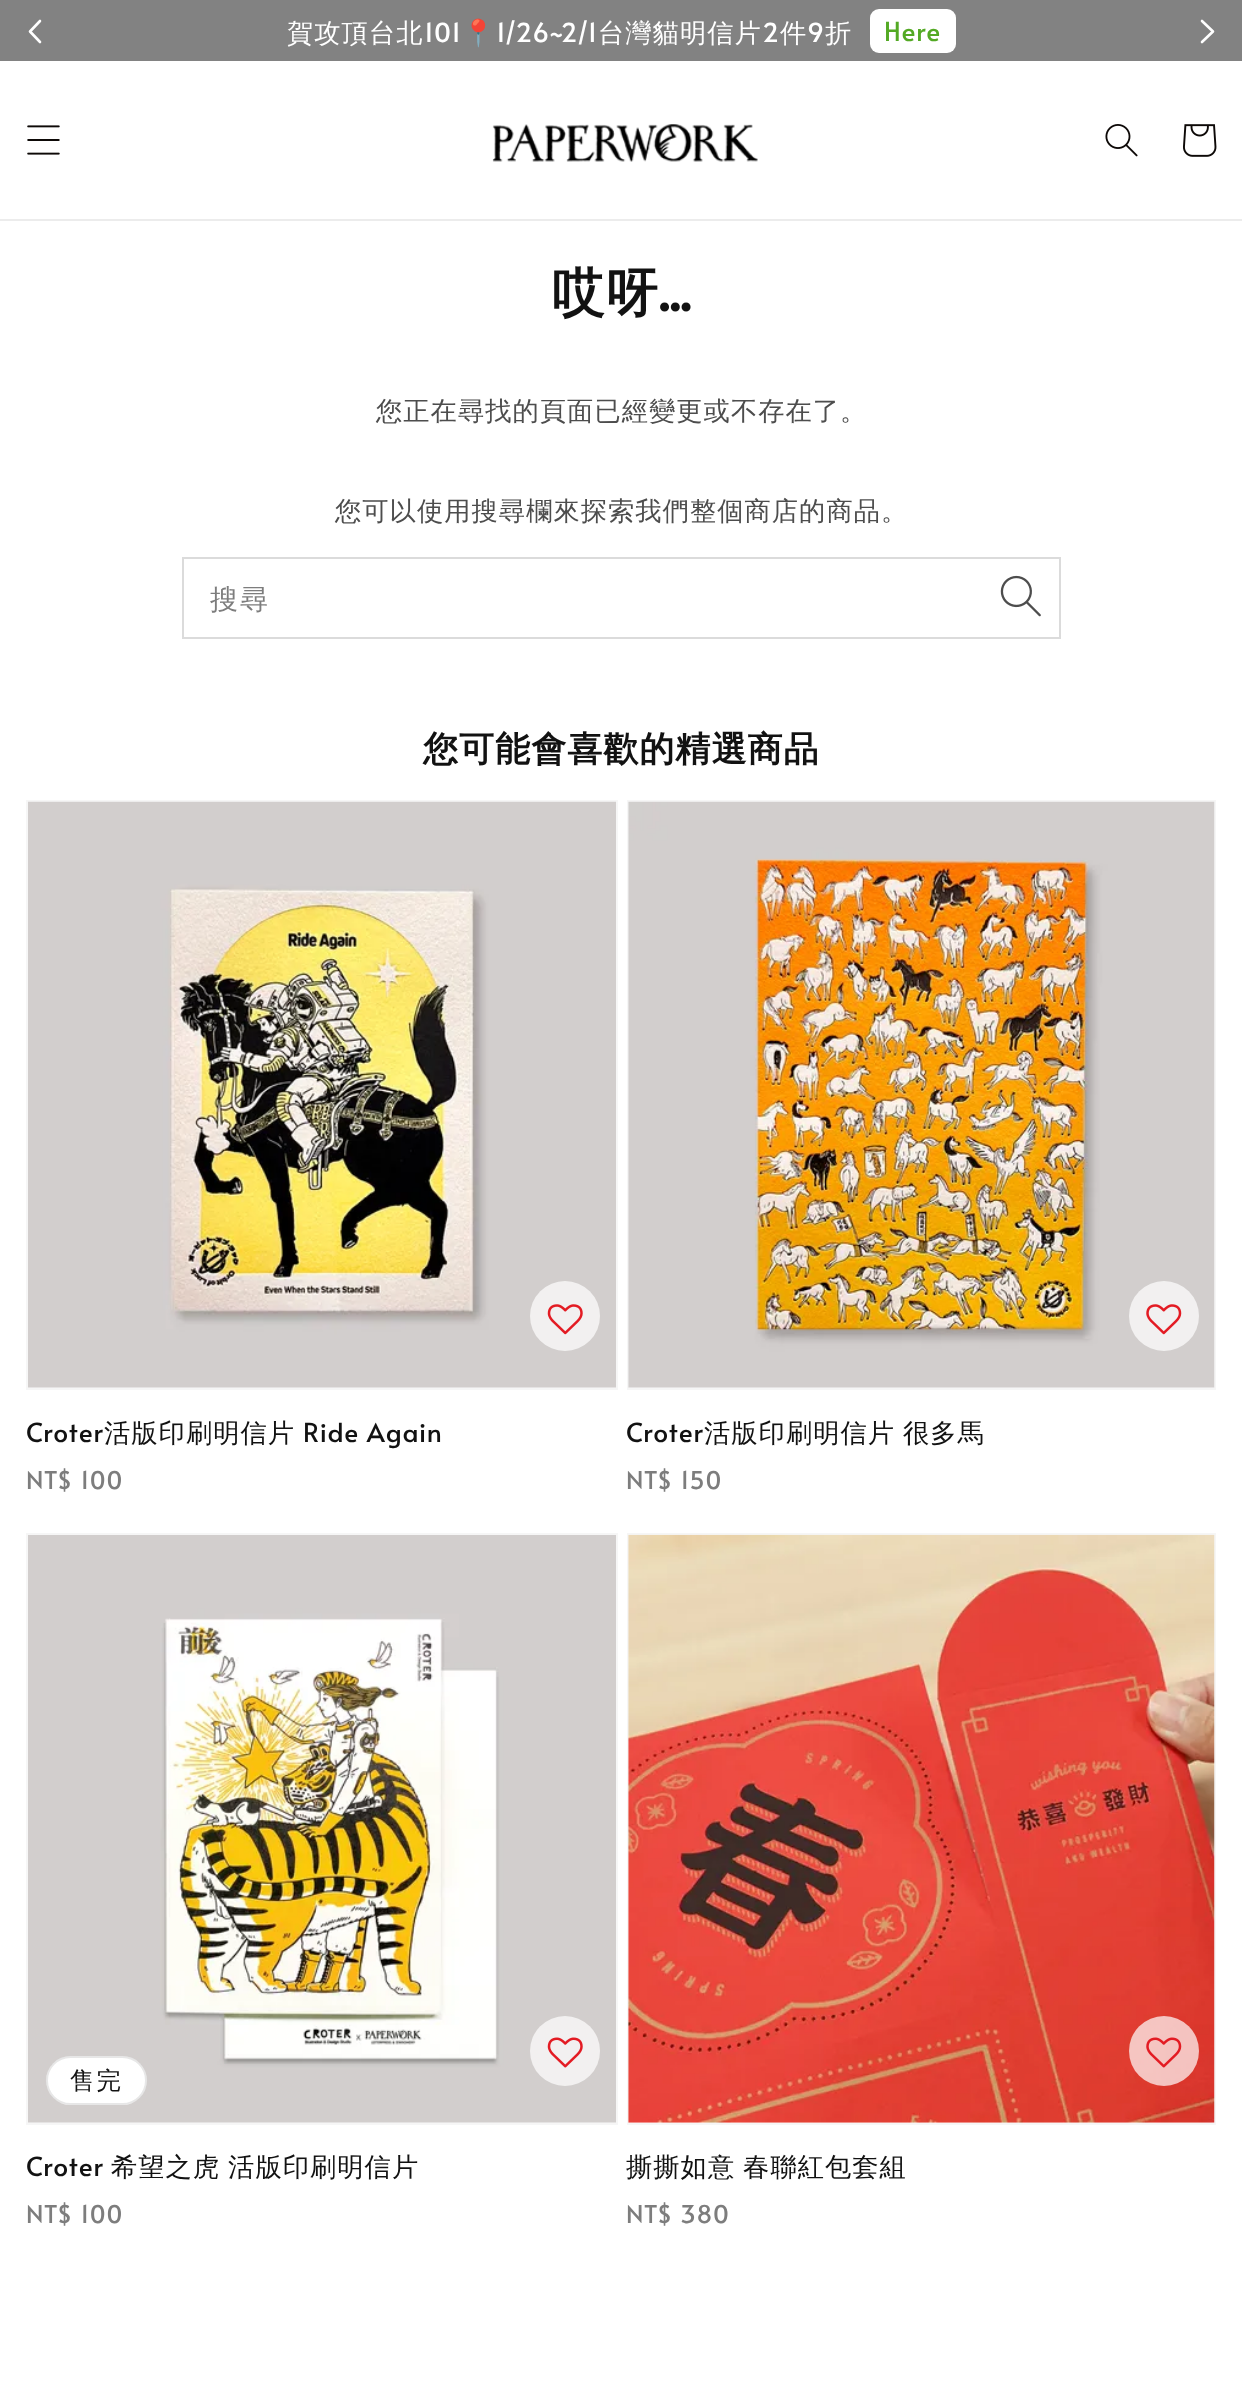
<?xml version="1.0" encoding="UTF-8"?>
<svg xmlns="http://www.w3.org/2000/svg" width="1242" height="2398">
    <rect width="100%" height="100%" fill="#FFFFFF"/>
    <rect x="0" y="0" width="1242" height="61" fill="#828282"/>
    <path d="M 40 21 L 30 31.5 L 40 42" fill="none" stroke="#FFFFFF" stroke-width="2.6" stroke-linecap="round" stroke-linejoin="round"/>
    <text x="287" y="42" font-family="WenQuanYi Zen Hei" font-size="26.25" font-weight="500" letter-spacing="1.05" fill="#FFFFFF">賀攻頂台北</text>
    <text x="424" y="42" font-family="Alata" font-size="26.25" letter-spacing="1.05" fill="#FFFFFF">101</text>
    <text x="462" y="42" font-family="Noto Color Emoji" font-size="26.25" letter-spacing="1.05" fill="#FFFFFF">📍</text>
    <text x="496" y="42" font-family="Alata" font-size="26.25" letter-spacing="1.05" fill="#FFFFFF">1/26~2/1</text>
    <text x="598" y="42" font-family="WenQuanYi Zen Hei" font-size="26.25" font-weight="500" letter-spacing="1.05" fill="#FFFFFF">台灣貓明信片</text>
    <text x="762" y="42" font-family="Alata" font-size="26.25" letter-spacing="1.05" fill="#FFFFFF">2</text>
    <text x="780" y="42" font-family="WenQuanYi Zen Hei" font-size="26.25" font-weight="500" letter-spacing="1.05" fill="#FFFFFF">件</text>
    <text x="807" y="42" font-family="Alata" font-size="26.25" letter-spacing="1.05" fill="#FFFFFF">9</text>
    <text x="825" y="42" font-family="WenQuanYi Zen Hei" font-size="26.25" font-weight="500" letter-spacing="1.05" fill="#FFFFFF">折</text>
    <rect x="870" y="9" width="86" height="44" rx="9" fill="#FFFFFF"/>
    <text x="884" y="41" font-family="Alata" font-size="26.25" letter-spacing="1.05" fill="#53A924">Here</text>
    <path d="M 1202 21 L 1213 31.5 L 1202 42" fill="none" stroke="#FFFFFF" stroke-width="2.6" stroke-linecap="round" stroke-linejoin="round"/>
    <rect x="0" y="219" width="1242" height="2" fill="#ECECEC"/>
    <image x="27" y="125" width="33" height="30" href="img_01.png"/>
    <image x="492" y="124" width="266" height="38" href="img_02.png"/>
    <image x="1105" y="124" width="33" height="33" href="img_03.png"/>
    <image x="1183" y="124" width="34" height="33" href="img_04.png"/>
    <text x="552" y="311" font-family="WenQuanYi Zen Hei" font-size="52.5" font-weight="700" letter-spacing="1.05" fill="#121212">哎呀</text>
    <text x="659" y="311" font-family="Alata" font-size="52.5" font-weight="700" letter-spacing="1.05" fill="#121212">...</text>
    <text x="376" y="420" font-family="WenQuanYi Zen Hei" font-size="26.25" font-weight="500" letter-spacing="1.05" fill="#4D4D4D">您正在尋找的頁面已經變更或不存在了。</text>
    <text x="335" y="520" font-family="WenQuanYi Zen Hei" font-size="26.25" font-weight="500" letter-spacing="1.05" fill="#4D4D4D">您可以使用搜尋欄來探索我們整個商店的商品。</text>
    <rect x="183" y="558" width="877" height="80" fill="none" stroke="#DBDBDB" stroke-width="2"/>
    <text x="210" y="609" font-family="WenQuanYi Zen Hei" font-size="28" font-weight="500" letter-spacing="2" fill="#7D7D7D">搜尋</text>
    <image x="1000" y="575" width="41" height="42" href="img_05.png"/>
    <text x="423" y="761" font-family="WenQuanYi Zen Hei" font-size="35" font-weight="700" letter-spacing="1.05" fill="#121212">您可能會喜歡的精選商品</text>
    <rect x="27" y="801" width="590" height="588" fill="none" stroke="#F6F6F6" stroke-width="2"/>
    <image x="28" y="801" width="588" height="587" href="img_06.png"/>
    <circle cx="565" cy="1316" r="35" fill="#FFFFFF" fill-opacity="0.7"/>
    <image x="547" y="1304" width="36" height="31" href="img_07.png"/>
    <text x="26" y="1442" font-family="Alata" font-size="26.25" letter-spacing="1.05" fill="#121212">Croter</text>
    <text x="104" y="1442" font-family="WenQuanYi Zen Hei" font-size="26.25" font-weight="500" letter-spacing="1.05" fill="#121212">活版印刷明信片</text>
    <text x="303" y="1442" font-family="Alata" font-size="26.25" letter-spacing="1.05" fill="#121212">Ride Again</text>
    <text x="26" y="1489" font-family="Alata" font-size="24.5" letter-spacing="1.05" fill="#7D7D7D">NT$ 100</text>
    <rect x="628" y="801" width="587" height="588" fill="none" stroke="#F6F6F6" stroke-width="2"/>
    <image x="628" y="801" width="587" height="587" href="img_08.png"/>
    <circle cx="1164" cy="1316" r="35" fill="#FFFFFF" fill-opacity="0.7"/>
    <image x="1146" y="1304" width="36" height="31" href="img_09.png"/>
    <text x="626" y="1442" font-family="Alata" font-size="26.25" letter-spacing="1.05" fill="#121212">Croter</text>
    <text x="704" y="1442" word-spacing="-1" font-family="WenQuanYi Zen Hei" font-size="26.25" font-weight="500" letter-spacing="1.05" fill="#121212">活版印刷明信片 很多馬</text>
    <text x="626" y="1489" font-family="Alata" font-size="24.5" letter-spacing="1.05" fill="#7D7D7D">NT$ 150</text>
    <rect x="27" y="1534" width="590" height="590" fill="none" stroke="#F6F6F6" stroke-width="2"/>
    <image x="28" y="1535" width="588" height="588" href="img_10.png"/>
    <rect x="46" y="2056" width="101" height="49" rx="24.5" fill="#FFFFFF"/>
    <rect x="47" y="2057" width="99" height="47" rx="23.5" fill="none" stroke="#121212" stroke-opacity="0.1" stroke-width="2"/>
    <text x="70" y="2089" font-family="WenQuanYi Zen Hei" font-size="24.5" font-weight="500" letter-spacing="2" fill="#121212">售完</text>
    <circle cx="565" cy="2051" r="35" fill="#FFFFFF" fill-opacity="0.7"/>
    <image x="547" y="2037" width="36" height="31" href="img_11.png"/>
    <text x="26" y="2176" font-family="Alata" font-size="26.25" letter-spacing="1.05" fill="#121212">Croter</text>
    <text x="111" y="2176" word-spacing="-1" font-family="WenQuanYi Zen Hei" font-size="26.25" font-weight="500" letter-spacing="1.05" fill="#121212">希望之虎 活版印刷明信片</text>
    <text x="26" y="2223" font-family="Alata" font-size="24.5" letter-spacing="1.05" fill="#7D7D7D">NT$ 100</text>
    <rect x="628" y="1534" width="587" height="590" fill="none" stroke="#F6F6F6" stroke-width="2"/>
    <image x="628" y="1534" width="587" height="589" href="img_12.png"/>
    <circle cx="1164" cy="2051" r="35" fill="#FFFFFF" fill-opacity="0.7"/>
    <image x="1146" y="2037" width="36" height="31" href="img_13.png"/>
    <text x="626" y="2176" word-spacing="-1" font-family="WenQuanYi Zen Hei" font-size="26.25" font-weight="500" letter-spacing="1.05" fill="#121212">撕撕如意 春聯紅包套組</text>
    <text x="626" y="2223" font-family="Alata" font-size="24.5" letter-spacing="1.05" fill="#7D7D7D">NT$ 380</text>
</svg>
